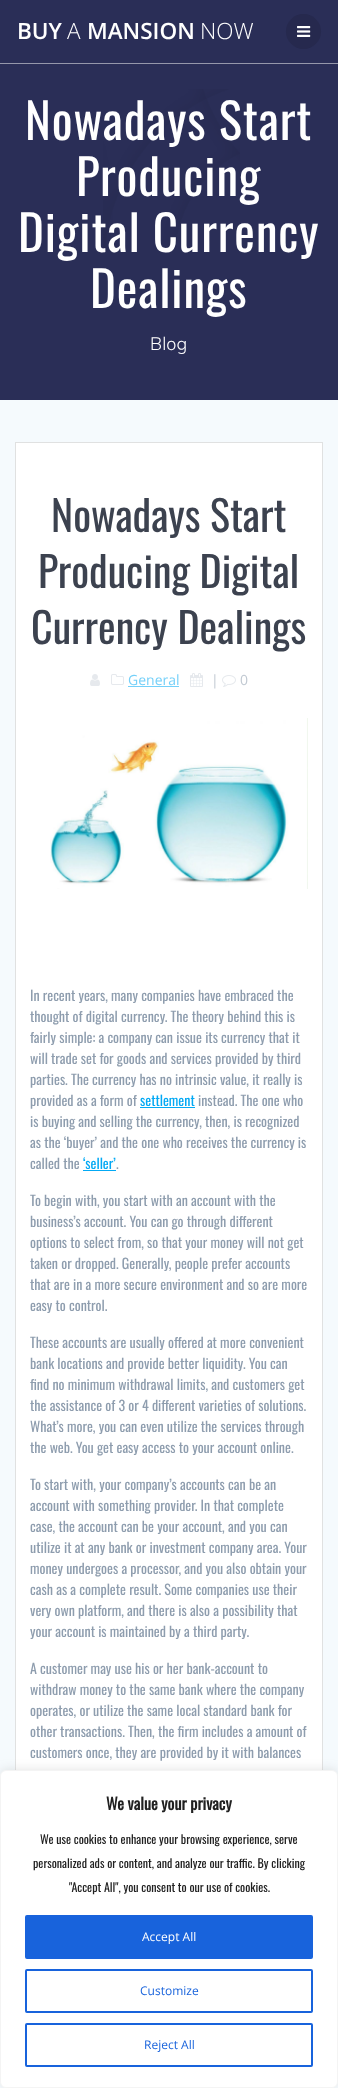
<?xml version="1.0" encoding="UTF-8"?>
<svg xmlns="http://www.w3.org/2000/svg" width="338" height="2088">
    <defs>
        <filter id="blur1" x="-50%" y="-200%" width="200%" height="500%"><feGaussianBlur stdDeviation="5"/></filter>
    </defs>
    <rect width="100%" height="100%" fill="#2A2E57"/>
    <rect x="0" y="63" width="338" height="1" fill="#9597AB"/>
    <text x="17" y="39" font-family="Open Sans" font-size="22.5" font-weight="600" fill="#FFFFFF">BUY</text>
    <text x="67" y="39" font-family="Open Sans" font-size="22.5" font-weight="300" fill="#FFFFFF">A</text>
    <text x="87" y="39" font-family="Open Sans" font-size="22.5" font-weight="600" fill="#FFFFFF">MANSION</text>
    <text x="200" y="39" font-family="Open Sans" font-size="22.5" font-weight="300" fill="#FFFFFF">NOW</text>
    <circle cx="303.5" cy="31.5" r="17.5" fill="#26294E"/>
    <image x="297" y="26" width="14" height="11" href="img_01.png"/>
    <image x="103" y="89" width="137" height="159" href="img_02.png"/>
    <text x="25" y="140" font-family="Oswald" font-size="49" letter-spacing="0.9" fill="#FFFFFF">Nowadays Start</text>
    <text x="76" y="196" font-family="Oswald" font-size="49" letter-spacing="0.9" fill="#FFFFFF">Producing</text>
    <text x="18" y="252" font-family="Oswald" font-size="49" letter-spacing="0.9" fill="#FFFFFF">Digital Currency</text>
    <text x="90" y="308" font-family="Oswald" font-size="49" letter-spacing="0.9" fill="#FFFFFF">Dealings</text>
    <text x="150" y="350" font-family="Muli" font-size="18" font-weight="300" fill="#FFFFFF">Blog</text>
    <rect x="0" y="400" width="338" height="1688" fill="#F5FAFD"/>
    <rect x="16" y="443" width="306" height="1327" fill="#FFFFFF"/>
    <rect x="15.5" y="442.5" width="307" height="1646" fill="none" stroke="#E0E1E1"/>
    <text x="51" y="532" font-family="Oswald" font-size="42" fill="#3C424F">Nowadays Start</text>
    <text x="38" y="588" font-family="Oswald" font-size="42" fill="#3C424F">Producing Digital</text>
    <text x="31" y="644" font-family="Oswald" font-size="42" fill="#3C424F">Currency Dealings</text>
    <image x="90" y="674" width="10" height="12" href="img_03.png"/>
    <image x="111" y="674" width="13" height="11" href="img_04.png"/>
    <text x="128" y="685" font-family="Open Sans" font-size="14" fill="#74D0F9">General</text>
    <rect x="128" y="686" width="51" height="1" fill="#74D0F9"/>
    <image x="190" y="673" width="13" height="14" href="img_05.png"/>
    <text x="211" y="685" font-family="Open Sans" font-size="14" fill="#C1C9D2">|</text>
    <image x="222" y="675" width="14" height="12" href="img_06.png"/>
    <text x="240" y="685" font-family="Open Sans" font-size="14" fill="#C1C9D2">0</text>
    <image x="50" y="718" width="258" height="171" href="img_07.png"/>
    <text font-family="Oswald" font-size="14" fill="#8E9DAE">
        <tspan x="30" y="1001">In recent years, many companies have embraced the</tspan>
        <tspan x="30" y="1022">thought of digital currency. The theory behind this is</tspan>
        <tspan x="30" y="1043">fairly simple: a company can issue its currency that it</tspan>
        <tspan x="30" y="1064">will trade set for goods and services provided by third</tspan>
        <tspan x="30" y="1085">parties. The currency has no intrinsic value, it really is</tspan>
        <tspan x="30" y="1106">provided as a form of</tspan>
    </text>
    <text x="140" y="1106" font-family="Oswald" font-size="14" fill="#03A9F4">settlement</text>
    <rect x="140" y="1107" width="55" height="1" fill="#03A9F4"/>
    <text x="198" y="1106" font-family="Oswald" font-size="14" fill="#8E9DAE">instead. The one who</text>
    <text font-family="Oswald" font-size="14" fill="#8E9DAE">
        <tspan x="30" y="1127">is buying and selling the currency, then, is recognized</tspan>
        <tspan x="30" y="1148">as the ‘buyer’ and the one who receives the currency is</tspan>
        <tspan x="30" y="1169">called the</tspan>
    </text>
    <text x="83" y="1169" font-family="Oswald" font-size="14" fill="#03A9F4">‘seller’</text>
    <rect x="83" y="1170" width="33" height="1" fill="#03A9F4"/>
    <text x="116" y="1169" font-family="Oswald" font-size="14" fill="#8E9DAE">.</text>
    <text font-family="Oswald" font-size="14" fill="#8E9DAE">
        <tspan x="30" y="1206">To begin with, you start with an account with the</tspan>
        <tspan x="30" y="1227">business’s account. You can go through different</tspan>
        <tspan x="30" y="1248">options to select from, so that your money will not get</tspan>
        <tspan x="30" y="1269">taken or dropped. Generally, people prefer accounts</tspan>
        <tspan x="30" y="1290">that are in a more secure environment and so are more</tspan>
        <tspan x="30" y="1311">easy to control.</tspan>
    </text>
    <text font-family="Oswald" font-size="14" fill="#8E9DAE">
        <tspan x="30" y="1348">These accounts are usually offered at more convenient</tspan>
        <tspan x="30" y="1369">bank locations and provide better liquidity. You can</tspan>
        <tspan x="30" y="1390">find no minimum withdrawal limits, and customers get</tspan>
        <tspan x="30" y="1411">the assistance of 3 or 4 different varieties of solutions.</tspan>
        <tspan x="30" y="1432">What’s more, you can even utilize the services through</tspan>
        <tspan x="30" y="1453">the web. You get easy access to your account online.</tspan>
    </text>
    <text font-family="Oswald" font-size="14" fill="#8E9DAE">
        <tspan x="30" y="1490">To start with, your company’s accounts can be an</tspan>
        <tspan x="30" y="1511">account with something provider. In that complete</tspan>
        <tspan x="30" y="1532">case, the account can be your account, and you can</tspan>
        <tspan x="30" y="1553">utilize it at any bank or investment company area. Your</tspan>
        <tspan x="30" y="1574">money undergoes a processor, and you also obtain your</tspan>
        <tspan x="30" y="1595">cash as a complete result. Some companies use their</tspan>
        <tspan x="30" y="1616">very own platform, and there is also a possibility that</tspan>
        <tspan x="30" y="1637">your account is maintained by a third party.</tspan>
    </text>
    <text font-family="Oswald" font-size="14" fill="#8E9DAE">
        <tspan x="30" y="1674">A customer may use his or her bank-account to</tspan>
        <tspan x="30" y="1695">withdraw money to the same bank where the company</tspan>
        <tspan x="30" y="1716">operates, or utilize the same local standard bank for</tspan>
        <tspan x="30" y="1737">other transactions. Then, the firm includes a amount of</tspan>
        <tspan x="30" y="1758">customers once, they are provided by it with balances</tspan>
    </text>
    <rect x="0" y="1769" width="338" height="318" rx="6" fill="#ACABAB" fill-opacity="0.3" filter="url(#blur1)"/>
    <rect x="0.5" y="1770.5" width="337" height="317" rx="5.5" fill="#FFFFFF" stroke="#F4F4F4"/>
    <text x="106" y="1810" font-family="Oswald" font-size="16" font-weight="700" fill="#212121">We value your privacy</text>
    <text x="40" y="1844" font-family="Oswald" font-size="12" fill="#212121">We use cookies to enhance your browsing experience, serve</text>
    <text x="33" y="1868" font-family="Oswald" font-size="12" fill="#212121">personalized ads or content, and analyze our traffic. By clicking</text>
    <text x="69" y="1892" font-family="Oswald" font-size="12" fill="#212121">"Accept All", you consent to our use of cookies.</text>
    <rect x="26" y="1916" width="286" height="42" rx="1" fill="#1863DC" stroke="#1863DC" stroke-width="2"/>
    <text x="142" y="1941" font-family="Open Sans" font-size="12" fill="#FFFFFF">Accept All</text>
    <rect x="26" y="1970" width="286" height="42" rx="1" fill="none" stroke="#1863DC" stroke-width="2"/>
    <text x="140" y="1995" font-family="Open Sans" font-size="12" fill="#1863DC">Customize</text>
    <rect x="26" y="2024" width="286" height="42" rx="1" fill="none" stroke="#1863DC" stroke-width="2"/>
    <text x="144" y="2049" font-family="Open Sans" font-size="12" fill="#1863DC">Reject All</text>
</svg>
